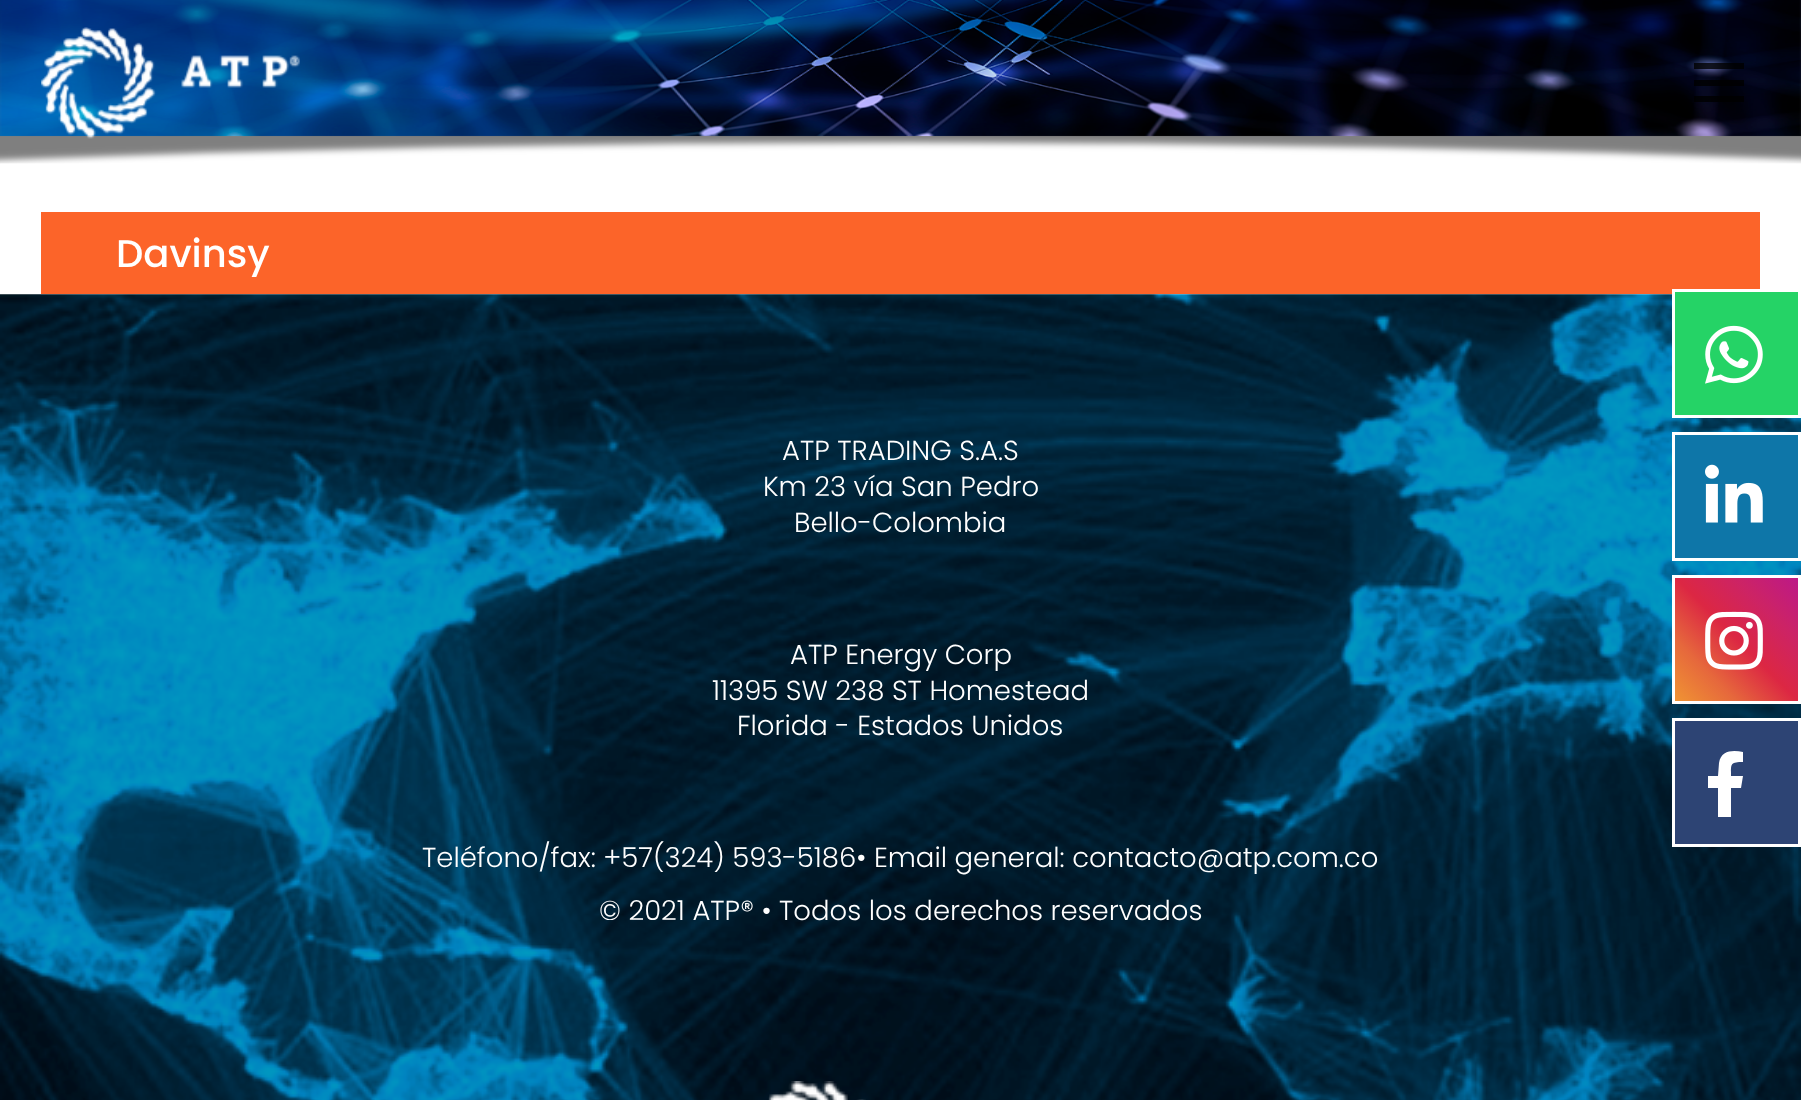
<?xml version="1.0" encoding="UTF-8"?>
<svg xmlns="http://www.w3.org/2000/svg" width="1801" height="1100">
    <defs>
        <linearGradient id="g1" gradientUnits="userSpaceOnUse" x1="1675" y1="701" x2="1799" y2="578"><stop offset="0" stop-color="#F09433"/><stop offset="0.25" stop-color="#E6683C"/><stop offset="0.5" stop-color="#DC2743"/><stop offset="0.75" stop-color="#CC2366"/><stop offset="1" stop-color="#BC1888"/></linearGradient>
    </defs>
    <rect width="100%" height="100%" fill="#FFFFFF"/>
    <image x="0" y="0" width="1801" height="164" href="img_01.png"/>
    <image x="41" y="27" width="259" height="112" href="img_02.png"/>
    <rect x="1694" y="80" width="50" height="6" fill="#000000" fill-opacity="0.8"/>
    <rect x="1694" y="63" width="50" height="6" fill="#000000" fill-opacity="0.8"/>
    <rect x="1694" y="96" width="50" height="6" fill="#000000" fill-opacity="0.8"/>
    <rect x="41" y="212" width="1719" height="82" fill="#FC6429"/>
    <text x="116" y="267" font-family="Poppins" font-size="38.5" font-weight="500" fill="#FFFFFF">Davinsy</text>
    <image x="0" y="294" width="1801" height="806" href="img_03.png"/>
    <text x="782" y="460" font-family="Poppins" font-size="27.5" font-weight="300" fill="#FFFFFF">ATP TRADING S.A.S</text>
    <text x="763" y="496" font-family="Poppins" font-size="27.5" font-weight="300" fill="#FFFFFF">Km 23 vía San Pedro</text>
    <text x="794" y="532" font-family="Poppins" font-size="27.5" font-weight="300" fill="#FFFFFF">Bello-Colombia</text>
    <text x="790" y="664" font-family="Poppins" font-size="27.5" font-weight="300" fill="#FFFFFF">ATP Energy Corp</text>
    <text x="712" y="700" font-family="Poppins" font-size="27.5" font-weight="300" fill="#FFFFFF">11395 SW 238 ST Homestead</text>
    <text x="737" y="735" font-family="Poppins" font-size="27.5" font-weight="300" fill="#FFFFFF">Florida - Estados Unidos</text>
    <text x="422" y="867" font-family="Poppins" font-size="27.5" font-weight="300" fill="#FFFFFF">Teléfono/fax: +57(324) 593-5186• Email general: contacto@atp.com.co</text>
    <text x="599" y="920" font-family="Poppins" font-size="27.5" font-weight="300" fill="#FFFFFF">© 2021 ATP® • Todos los derechos reservados</text>
    <image x="768" y="1081" width="98" height="19" href="img_04.png"/>
    <rect x="1673.5" y="290.5" width="126" height="126" fill="#25D366" stroke="#FFFFFF" stroke-width="3"/>
    <image x="1705" y="325" width="58" height="59" href="img_05.png"/>
    <rect x="1673.5" y="433.5" width="126" height="126" fill="#0E76A8" stroke="#FFFFFF" stroke-width="3"/>
    <image x="1705" y="464" width="58" height="59" href="img_06.png"/>
    <rect x="1675" y="578" width="123" height="123" fill="url(#g1)"/>
    <rect x="1673.5" y="576.5" width="126" height="126" fill="none" stroke="#FFFFFF" stroke-width="3"/>
    <image x="1705" y="611" width="58" height="59" href="img_07.png"/>
    <rect x="1673.5" y="719.5" width="126" height="126" fill="#2D4474" stroke="#FFFFFF" stroke-width="3"/>
    <path d="M 1741 788 H 1731 V 817 H 1718 V 788 H 1708 V 776 H 1718 L 1719 763 C 1721 750 1733 750 1743 752 V 762 C 1730 762 1731 764 1731 776 H 1743 Z" fill="#FFFFFF"/>
</svg>
